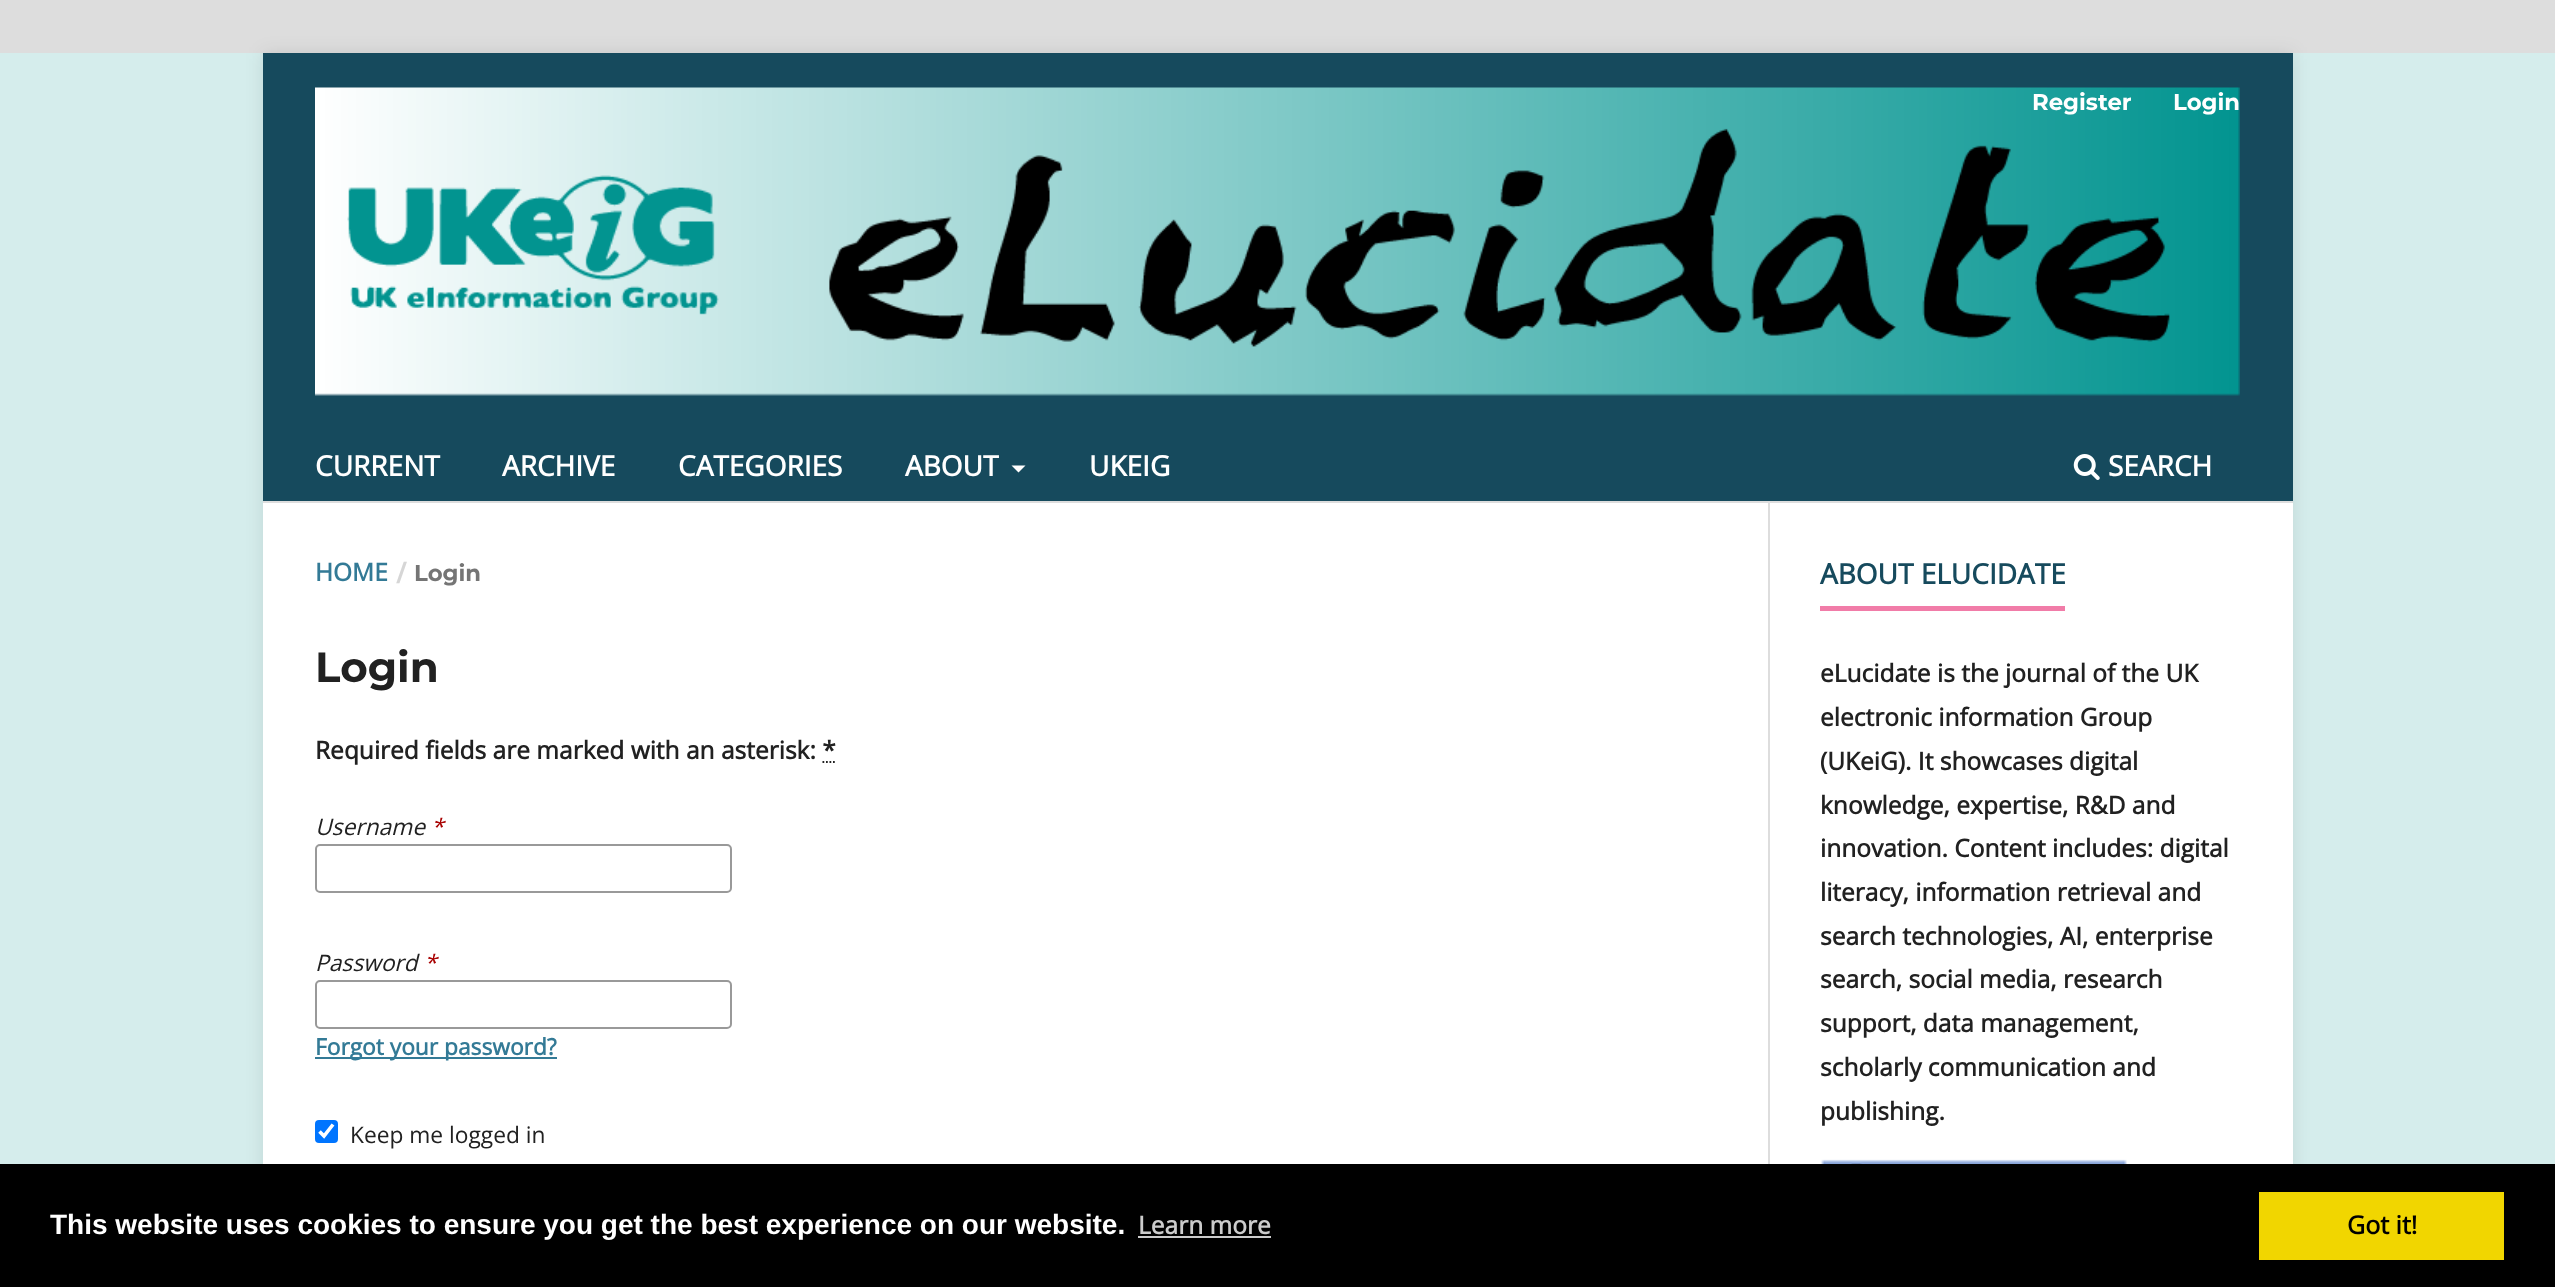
<?xml version="1.0" encoding="UTF-8"?>
<svg xmlns="http://www.w3.org/2000/svg" width="2555" height="1287">
    <defs>
        <filter id="blur1" x="-50%" y="-200%" width="200%" height="500%"><feGaussianBlur stdDeviation="9"/></filter>
    </defs>
    <rect width="100%" height="100%" fill="#DDDDDD"/>
    <rect x="0" y="53" width="2555" height="1111" fill="#D5EDEC"/>
    <rect x="263" y="53" width="2030" height="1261" fill="#000000" fill-opacity="0.1" filter="url(#blur1)"/>
    <rect x="263" y="503" width="2030" height="661" fill="#FFFFFF"/>
    <rect x="263" y="53" width="2030" height="448" fill="#164A5D"/>
    <rect x="263" y="501" width="2030" height="2" fill="#DDDDDD"/>
    <image x="315" y="87" width="1925" height="309" href="img_01.png"/>
    <text x="2032" y="110" font-family="Montserrat" font-size="22.75" font-weight="700" fill="#FFFFFF">Register</text>
    <text x="2173" y="110" font-family="Montserrat" font-size="22.75" font-weight="700" fill="#FFFFFF">Login</text>
    <text x="315" y="476" font-family="Open Sans" font-size="28" font-weight="700" fill="#FFFFFF">CURRENT</text>
    <text x="502" y="476" font-family="Open Sans" font-size="28" font-weight="700" fill="#FFFFFF">ARCHIVE</text>
    <text x="678" y="476" font-family="Open Sans" font-size="28" font-weight="700" fill="#FFFFFF">CATEGORIES</text>
    <text x="905" y="476" font-family="Open Sans" font-size="28" font-weight="700" fill="#FFFFFF">ABOUT</text>
    <path d="M 1011.5 465.5 H 1025.5 L 1018.5 472.5 Z" fill="#FFFFFF"/>
    <text x="1089" y="476" font-family="Open Sans" font-size="28" font-weight="700" fill="#FFFFFF">UKEIG</text>
    <image x="2073" y="454" width="27" height="26" href="img_02.png"/>
    <text x="2108" y="476" font-family="Open Sans" font-size="28" font-weight="700" fill="#FFFFFF">SEARCH</text>
    <text x="315" y="581" font-family="Open Sans" font-size="24.5" font-weight="700" fill="#337A96">HOME</text>
    <text x="397" y="581" font-family="Montserrat" font-size="22.75" font-weight="700" fill="#D6D6D6">/</text>
    <text x="414" y="581" font-family="Montserrat" font-size="22.75" font-weight="700" fill="#757575">Login</text>
    <text x="315" y="682" font-family="Montserrat" font-size="42" font-weight="700" fill="#212121">Login</text>
    <text x="315" y="759" font-family="Open Sans" font-size="24.5" font-weight="700" fill="#212121">Required fields are marked with an asterisk: *</text>
    <path d="M 822.5 762 H 836" fill="none" stroke="#212121" stroke-width="1.8" stroke-dasharray="1.75 1.75"/>
    <text x="315" y="835" font-family="Open Sans" font-size="22.75" font-style="italic" fill="#212121">Username</text>
    <text x="431" y="835" font-family="Open Sans" font-size="22.75" font-style="italic" fill="#A80000">*</text>
    <rect x="316" y="845" width="415" height="47" rx="4" fill="none" stroke="#999999" stroke-width="2"/>
    <text x="315" y="971" font-family="Open Sans" font-size="22.75" font-style="italic" fill="#212121">Password</text>
    <text x="424" y="971" font-family="Open Sans" font-size="22.75" font-style="italic" fill="#A80000">*</text>
    <rect x="316" y="981" width="415" height="47" rx="4" fill="none" stroke="#999999" stroke-width="2"/>
    <rect x="315" y="1057" width="242" height="2" fill="#337A96"/>
    <text x="315" y="1055" font-family="Open Sans" font-size="22.75" font-weight="700" fill="#337A96">Forgot your password?</text>
    <rect x="315" y="1120" width="23" height="23" rx="4" fill="#0075FF"/>
    <path d="M 319.5 1131.5 L 324 1136 L 333 1124.5" fill="none" stroke="#FFFFFF" stroke-width="3.6"/>
    <text x="350" y="1143" font-family="Open Sans" font-size="22.75" fill="#212121">Keep me logged in</text>
    <rect x="1768" y="502" width="2" height="662" fill="#DDDDDD"/>
    <rect x="1820" y="606" width="245" height="5" fill="#F17CA8"/>
    <text x="1820" y="584" font-family="Open Sans" font-size="28" font-weight="700" fill="#164A5D">ABOUT ELUCIDATE</text>
    <text font-family="Open Sans" font-size="24.5" font-weight="700" fill="#212121">
        <tspan x="1820" y="682">eLucidate is the journal of the UK</tspan>
        <tspan x="1820" y="726">electronic information Group</tspan>
        <tspan x="1820" y="770">(UKeiG). It showcases digital</tspan>
        <tspan x="1820" y="814">knowledge, expertise, R&amp;D and</tspan>
        <tspan x="1820" y="857">innovation. Content includes: digital</tspan>
        <tspan x="1820" y="901">literacy, information retrieval and</tspan>
        <tspan x="1820" y="945">search technologies, AI, enterprise</tspan>
        <tspan x="1820" y="988">search, social media, research</tspan>
        <tspan x="1820" y="1032">support, data management,</tspan>
        <tspan x="1820" y="1076">scholarly communication and</tspan>
        <tspan x="1820" y="1120">publishing.</tspan>
    </text>
    <image x="1821" y="1159" width="306" height="5" href="img_03.png"/>
    <rect x="0" y="1164" width="2555" height="123" fill="#000000"/>
    <text x="50" y="1234" font-family="Liberation Sans" font-size="28" font-weight="700" fill="#FFFFFF">This website uses cookies to ensure you get the best experience on our website.</text>
    <text x="1138" y="1234" font-family="Open Sans" font-size="24.5" font-weight="700" fill="#CCCCCC">Learn more</text>
    <rect x="1138" y="1236" width="133" height="2" fill="#CCCCCC"/>
    <rect x="2259" y="1192" width="245" height="68" fill="#F1D600"/>
    <text x="2347" y="1234" font-family="Open Sans" font-size="25" font-weight="700" fill="#000000">Got it!</text>
</svg>
